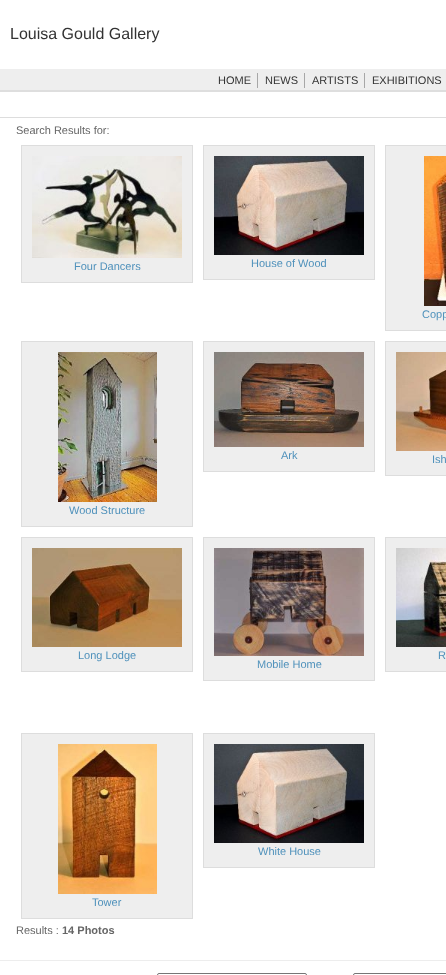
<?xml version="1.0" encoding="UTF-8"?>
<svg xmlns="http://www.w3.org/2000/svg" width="446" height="975">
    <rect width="100%" height="100%" fill="#FFFFFF"/>
    <text x="10" y="39" font-family="Liberation Sans" font-size="16" fill="#333333">Louisa Gould Gallery</text>
    <rect x="0" y="90" width="446" height="2" fill="#DEDEDE"/>
    <rect x="0" y="69" width="446" height="21" fill="#EEEEEE"/>
    <text x="218" y="84" font-family="Liberation Sans" font-size="11" fill="#333333">HOME</text>
    <rect x="257" y="73" width="1" height="15" fill="#A7A7A7"/>
    <text x="265" y="84" font-family="Liberation Sans" font-size="11" fill="#333333">NEWS</text>
    <rect x="304" y="73" width="1" height="15" fill="#A7A7A7"/>
    <text x="312" y="84" font-family="Liberation Sans" font-size="11" fill="#333333">ARTISTS</text>
    <rect x="364" y="73" width="1" height="15" fill="#A7A7A7"/>
    <text x="372" y="84" font-family="Liberation Sans" font-size="11" fill="#333333">EXHIBITIONS</text>
    <rect x="0" y="117" width="446" height="1" fill="#DDDDDD"/>
    <text x="16" y="134" font-family="Liberation Sans" font-size="11" fill="#666666">Search Results for:</text>
    <rect x="21.5" y="145.5" width="171" height="137" fill="#EEEEEE" stroke="#DDDDDD"/>
    <image x="32" y="156" width="150" height="102" href="img_01.png"/>
    <text x="74" y="270" font-family="Liberation Sans" font-size="11" fill="#4F91BB">Four Dancers</text>
    <rect x="203.5" y="145.5" width="171" height="134" fill="#EEEEEE" stroke="#DDDDDD"/>
    <image x="214" y="156" width="150" height="99" href="img_02.png"/>
    <text x="251" y="267" font-family="Liberation Sans" font-size="11" fill="#4F91BB">House of Wood</text>
    <rect x="385.5" y="145.5" width="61" height="185" fill="#EEEEEE" stroke="#DDDDDD"/>
    <image x="424" y="156" width="22" height="150" href="img_03.png"/>
    <text x="422" y="318" font-family="Liberation Sans" font-size="11" fill="#4F91BB">Copp</text>
    <rect x="203.5" y="341.5" width="171" height="130" fill="#EEEEEE" stroke="#DDDDDD"/>
    <image x="214" y="352" width="150" height="95" href="img_04.png"/>
    <text x="281" y="459" font-family="Liberation Sans" font-size="11" fill="#4F91BB">Ark</text>
    <rect x="385.5" y="341.5" width="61" height="134" fill="#EEEEEE" stroke="#DDDDDD"/>
    <image x="396" y="352" width="50" height="99" href="img_05.png"/>
    <text x="432" y="463" font-family="Liberation Sans" font-size="11" fill="#4F91BB">Ish</text>
    <rect x="21.5" y="341.5" width="171" height="185" fill="#EEEEEE" stroke="#DDDDDD"/>
    <image x="58" y="352" width="99" height="150" href="img_06.png"/>
    <text x="69" y="514" font-family="Liberation Sans" font-size="11" fill="#4F91BB">Wood Structure</text>
    <rect x="21.5" y="537.5" width="171" height="134" fill="#EEEEEE" stroke="#DDDDDD"/>
    <image x="32" y="548" width="150" height="99" href="img_07.png"/>
    <text x="78" y="659" font-family="Liberation Sans" font-size="11" fill="#4F91BB">Long Lodge</text>
    <rect x="385.5" y="537.5" width="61" height="134" fill="#EEEEEE" stroke="#DDDDDD"/>
    <image x="396" y="548" width="50" height="99" href="img_08.png"/>
    <text x="438" y="659" font-family="Liberation Sans" font-size="11" fill="#4F91BB">R</text>
    <rect x="203.5" y="537.5" width="171" height="143" fill="#EEEEEE" stroke="#DDDDDD"/>
    <image x="214" y="548" width="150" height="108" href="img_09.png"/>
    <text x="257" y="668" font-family="Liberation Sans" font-size="11" fill="#4F91BB">Mobile Home</text>
    <rect x="203.5" y="733.5" width="171" height="134" fill="#EEEEEE" stroke="#DDDDDD"/>
    <image x="214" y="744" width="150" height="99" href="img_10.png"/>
    <text x="258" y="855" font-family="Liberation Sans" font-size="11" fill="#4F91BB">White House</text>
    <rect x="21.5" y="733.5" width="171" height="185" fill="#EEEEEE" stroke="#DDDDDD"/>
    <image x="58" y="744" width="99" height="150" href="img_11.png"/>
    <text x="92" y="906" font-family="Liberation Sans" font-size="11" fill="#4F91BB">Tower</text>
    <text x="16" y="934" font-family="Liberation Sans" font-size="11" fill="#666666">Results :</text>
    <text x="62" y="934" font-family="Liberation Sans" font-size="11" font-weight="700" fill="#666666">14 Photos</text>
    <rect x="0" y="960" width="446" height="1" fill="#EDEDED"/>
    <rect x="157.5" y="973.5" width="149" height="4" rx="1.5" fill="none" stroke="#767676"/>
    <rect x="353.5" y="973.5" width="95" height="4" rx="1.5" fill="none" stroke="#767676"/>
</svg>
